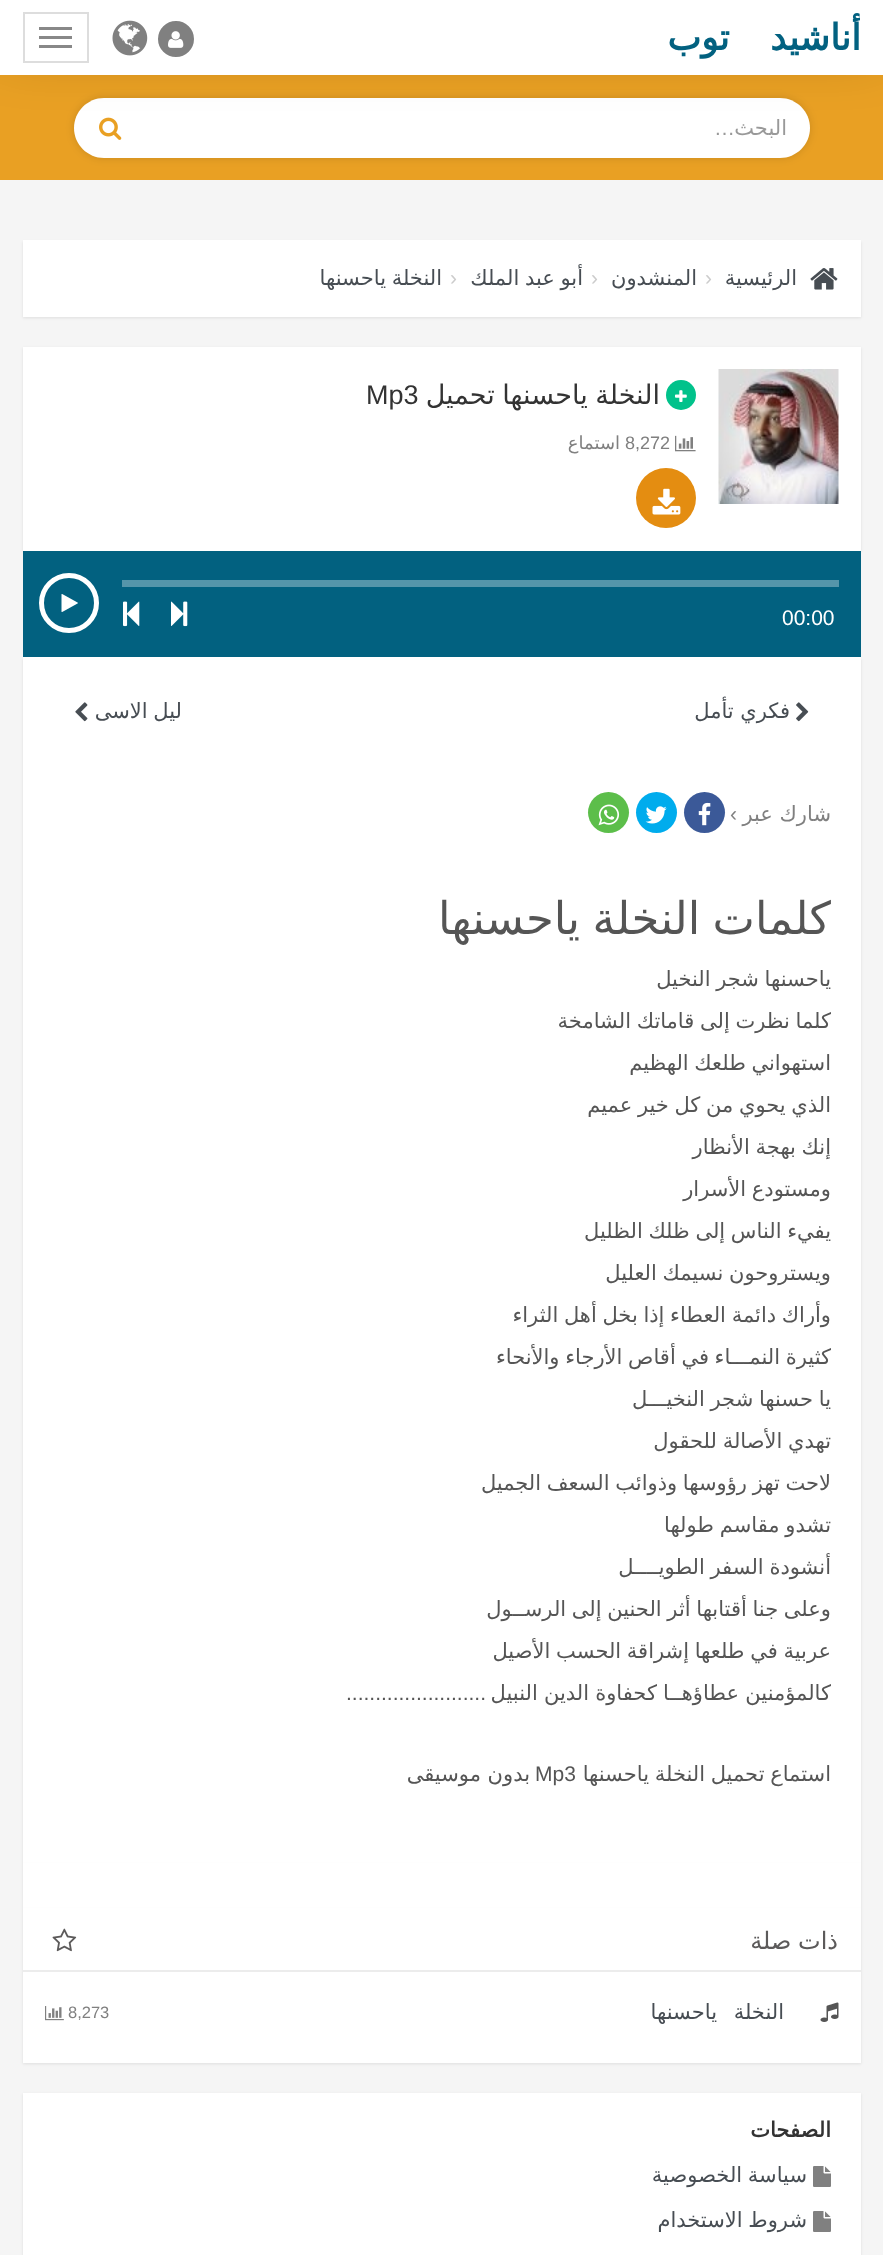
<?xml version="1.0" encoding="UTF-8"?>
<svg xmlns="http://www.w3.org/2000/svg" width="883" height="2255">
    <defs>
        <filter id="blur1" x="-50%" y="-200%" width="200%" height="500%"><feGaussianBlur stdDeviation="4"/></filter>
        <filter id="blur2" x="-50%" y="-200%" width="200%" height="500%"><feGaussianBlur stdDeviation="30"/></filter>
        <filter id="blur3" x="-50%" y="-200%" width="200%" height="500%"><feGaussianBlur stdDeviation="1.5"/></filter>
    </defs>
    <rect width="100%" height="100%" fill="#F5F5F5"/>
    <rect x="0" y="75" width="883" height="105" fill="#E9A023"/>
    <rect x="74" y="98" width="736" height="60" rx="30" fill="#000000" fill-opacity="0.14" filter="url(#blur1)"/>
    <path d="M 147 98 H 780 C 796.5 98 810 111.5 810 128 C 810 144.5 796.5 158 780 158 H 147 Z" fill="#FFFFFF"/>
    <path d="M 104 98 H 147 V 158 H 104 C 87.5 158 74 144.5 74 128 C 74 111.5 87.5 98 104 98 Z" fill="#FFFFFF"/>
    <image x="99" y="117" width="23" height="23" href="img_03.png"/>
    <rect x="0" y="-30" width="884" height="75" fill="#000000" fill-opacity="0.31" filter="url(#blur2)"/>
    <rect x="0" y="0" width="883" height="75" fill="#FFFFFF"/>
    <text x="861" y="50" word-spacing="29" font-family="DejaVu Sans" font-size="36" font-weight="700" letter-spacing="-3" direction="rtl" fill="#026180">أناشيد توب</text>
    <rect x="24" y="13" width="64" height="49" fill="none" stroke="#DDDDDD" stroke-width="2"/>
    <rect x="39" y="27" width="33" height="3" fill="#888888"/>
    <rect x="39" y="36" width="33" height="3" fill="#888888"/>
    <rect x="39" y="45" width="33" height="3" fill="#888888"/>
    <circle cx="176" cy="39" r="17" fill="#808080" stroke="#808080" stroke-width="2"/>
    <image x="168" y="31" width="16" height="17" href="img_01.png"/>
    <image x="112" y="20" width="36" height="36" href="img_02.png"/>
    <text x="787" y="135" font-family="DejaVu Sans" font-size="21" direction="rtl" fill="#999999">البحث</text>
    <text x="735" y="135" font-family="Liberation Sans" font-size="21" direction="rtl" fill="#999999">…</text>
    <rect x="23" y="242" width="838" height="76" fill="#000000" fill-opacity="0.09" filter="url(#blur3)"/>
    <rect x="23" y="240" width="838" height="77" fill="#FFFFFF"/>
    <image x="810" y="268" width="28" height="22" href="img_04.png"/>
    <text x="797" y="285" font-family="DejaVu Sans" font-size="21" direction="rtl" fill="#474D53">الرئيسية</text>
    <text x="705" y="285" font-family="Liberation Sans" font-size="21" fill="#CCCCCC">›</text>
    <text x="697" y="285" font-family="DejaVu Sans" font-size="21" direction="rtl" fill="#474D53">المنشدون</text>
    <text x="591" y="285" font-family="Liberation Sans" font-size="21" fill="#CCCCCC">›</text>
    <text x="583" y="285" word-spacing="-1" font-family="DejaVu Sans" font-size="21" direction="rtl" fill="#474D53">أبو عبد الملك</text>
    <text x="450" y="285" font-family="Liberation Sans" font-size="21" fill="#CCCCCC">›</text>
    <text x="442" y="285" word-spacing="-1" font-family="DejaVu Sans" font-size="21" direction="rtl" fill="#474D53">النخلة ياحسنها</text>
    <rect x="23" y="348" width="838" height="204" fill="#000000" fill-opacity="0.09" filter="url(#blur3)"/>
    <rect x="23" y="347" width="838" height="204" fill="#FFFFFF"/>
    <image x="718" y="369" width="121" height="135" href="img_05.png"/>
    <circle cx="681" cy="395" r="15" fill="#01C28B"/>
    <image x="675" y="390" width="12" height="12" href="img_06.png"/>
    <text x="660" y="404" word-spacing="-1" font-family="DejaVu Sans" font-size="27" direction="rtl" fill="#333333">النخلة ياحسنها تحميل</text>
    <text x="366" y="404" font-family="Liberation Sans" font-size="27" fill="#333333">Mp3</text>
    <image x="675" y="435" width="21" height="17" href="img_07.png"/>
    <text x="625" y="449" font-family="Liberation Sans" font-size="18" fill="#808080">8,272</text>
    <text x="620" y="449" font-family="DejaVu Sans" font-size="18" direction="rtl" fill="#808080">استماع</text>
    <circle cx="666" cy="498" r="30" fill="#E48D11"/>
    <image x="652" y="488" width="29" height="27" href="img_08.png"/>
    <rect x="23" y="659" width="838" height="1206" fill="#000000" fill-opacity="0.09" filter="url(#blur3)"/>
    <rect x="23" y="551" width="838" height="106" fill="#026180"/>
    <rect x="122" y="580" width="717" height="7" fill="#5595AA"/>
    <text x="782" y="625" font-family="Liberation Sans" font-size="21" fill="#FFFFFF">00:00</text>
    <image x="171" y="601" width="17" height="26" href="img_09.png"/>
    <image x="123" y="601" width="17" height="26" href="img_10.png"/>
    <circle cx="69" cy="603" r="27.5" fill="none" stroke="#FFFFFF" stroke-width="5"/>
    <image x="61" y="594" width="17" height="18" href="img_11.png"/>
    <rect x="23" y="657" width="838" height="1206" fill="#FFFFFF"/>
    <image x="796" y="702" width="13" height="20" href="img_12.png"/>
    <text x="790" y="718" font-family="DejaVu Sans" font-size="21" direction="rtl" fill="#474D53">فكري تأمل</text>
    <text x="182" y="718" word-spacing="-1" font-family="DejaVu Sans" font-size="21" direction="rtl" fill="#474D53">ليل الاسى</text>
    <image x="75" y="702" width="13" height="20" href="img_13.png"/>
    <text x="831" y="821" font-family="DejaVu Sans" font-size="21" direction="rtl" fill="#808080">شارك عبر</text>
    <text x="737" y="821" font-family="Liberation Sans" font-size="21" direction="rtl" fill="#808080">›</text>
    <circle cx="704.5" cy="812.5" r="20.5" fill="#3B5998"/>
    <image x="698" y="802" width="13" height="24" href="img_14.png"/>
    <circle cx="656.5" cy="812.5" r="20.5" fill="#00ACED"/>
    <image x="645" y="806" width="22" height="18" href="img_15.png"/>
    <circle cx="608.5" cy="812.5" r="20.5" fill="#5CBE4A"/>
    <image x="598" y="804" width="22" height="22" href="img_16.png"/>
    <text x="831" y="934" word-spacing="-2" font-family="DejaVu Sans" font-size="45" direction="rtl" fill="#555555">كلمات النخلة ياحسنها</text>
    <text x="831" y="986" word-spacing="-1" font-family="DejaVu Sans" font-size="21" direction="rtl" fill="#555555">ياحسنها شجر النخيل</text>
    <text x="831" y="1028" word-spacing="-1" font-family="DejaVu Sans" font-size="21" direction="rtl" fill="#555555">كلما نظرت إلى قاماتك الشامخة</text>
    <text x="831" y="1070" word-spacing="-1" font-family="DejaVu Sans" font-size="21" direction="rtl" fill="#555555">استهواني طلعك الهظيم</text>
    <text x="831" y="1112" word-spacing="-1" font-family="DejaVu Sans" font-size="21" direction="rtl" fill="#555555">الذي يحوي من كل خير عميم</text>
    <text x="831" y="1154" word-spacing="-1" font-family="DejaVu Sans" font-size="21" direction="rtl" fill="#555555">إنك بهجة الأنظار</text>
    <text x="831" y="1196" word-spacing="-1" font-family="DejaVu Sans" font-size="21" direction="rtl" fill="#555555">ومستودع الأسرار</text>
    <text x="831" y="1238" word-spacing="-1" font-family="DejaVu Sans" font-size="21" direction="rtl" fill="#555555">يفيء الناس إلى ظلك الظليل</text>
    <text x="831" y="1280" word-spacing="-1" font-family="DejaVu Sans" font-size="21" direction="rtl" fill="#555555">ويستروحون نسيمك العليل</text>
    <text x="831" y="1322" word-spacing="-1" font-family="DejaVu Sans" font-size="21" direction="rtl" fill="#555555">وأراك دائمة العطاء إذا بخل أهل الثراء</text>
    <text x="831" y="1364" word-spacing="-1" font-family="DejaVu Sans" font-size="21" direction="rtl" fill="#555555">كثيرة النمـــاء في أقاص الأرجاء والأنحاء</text>
    <text x="831" y="1406" word-spacing="-1" font-family="DejaVu Sans" font-size="21" direction="rtl" fill="#555555">يا حسنها شجر النخيـــل</text>
    <text x="831" y="1448" word-spacing="-1" font-family="DejaVu Sans" font-size="21" direction="rtl" fill="#555555">تهدي الأصالة للحقول</text>
    <text x="831" y="1490" word-spacing="-1" font-family="DejaVu Sans" font-size="21" direction="rtl" fill="#555555">لاحت تهز رؤوسها وذوائب السعف الجميل</text>
    <text x="831" y="1532" word-spacing="-1" font-family="DejaVu Sans" font-size="21" direction="rtl" fill="#555555">تشدو مقاسم طولها</text>
    <text x="831" y="1574" word-spacing="-1" font-family="DejaVu Sans" font-size="21" direction="rtl" fill="#555555">أنشودة السفر الطويــــل</text>
    <text x="831" y="1616" word-spacing="-1" font-family="DejaVu Sans" font-size="21" direction="rtl" fill="#555555">وعلى جنا أقتابها أثر الحنين إلى الرســول</text>
    <text x="831" y="1658" word-spacing="-1" font-family="DejaVu Sans" font-size="21" direction="rtl" fill="#555555">عربية في طلعها إشراقة الحسب الأصيل</text>
    <text x="831" y="1700" word-spacing="-0.5" font-family="DejaVu Sans" font-size="21" direction="rtl" fill="#555555">كالمؤمنين عطاؤهــا كحفاوة الدين النبيل</text>
    <text x="486" y="1700" font-family="Liberation Sans" font-size="21" direction="rtl" fill="#555555">........................</text>
    <text x="831" y="1781" word-spacing="-1" font-family="DejaVu Sans" font-size="21" direction="rtl" fill="#555555">استماع تحميل النخلة ياحسنها</text>
    <text x="535" y="1781" font-family="Liberation Sans" font-size="21" fill="#555555">Mp3</text>
    <text x="530" y="1781" font-family="DejaVu Sans" font-size="21" direction="rtl" fill="#555555">بدون موسيقى</text>
    <rect x="23" y="1865" width="838" height="45" fill="#000000" fill-opacity="0.09" filter="url(#blur3)"/>
    <rect x="23" y="1863" width="838" height="45" fill="#FFFFFF"/>
    <rect x="23" y="1910" width="838" height="154" fill="#000000" fill-opacity="0.09" filter="url(#blur3)"/>
    <rect x="23" y="1908" width="838" height="155" fill="#FFFFFF"/>
    <rect x="23" y="1970" width="838" height="2" fill="#ECECEC"/>
    <text x="838" y="1949" word-spacing="-1" font-family="DejaVu Sans" font-size="24" direction="rtl" fill="#5C5A5A">ذات صلة</text>
    <image x="52" y="1928" width="25" height="24" href="img_17.png"/>
    <image x="820" y="2002" width="19" height="20" href="img_18.png"/>
    <text x="784" y="2019" word-spacing="10" font-family="DejaVu Sans" font-size="21" letter-spacing="-0.75" direction="rtl" fill="#474D53">النخلة ياحسنها</text>
    <text x="68" y="2018" font-family="Liberation Sans" font-size="16.5" fill="#808080">8,273</text>
    <image x="45" y="2006" width="19" height="15" href="img_19.png"/>
    <rect x="23" y="2094" width="838" height="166" fill="#000000" fill-opacity="0.09" filter="url(#blur3)"/>
    <rect x="23" y="2093" width="838" height="162" fill="#FFFFFF"/>
    <text x="831" y="2137" font-family="DejaVu Sans" font-size="21" font-weight="700" direction="rtl" fill="#333333">الصفحات</text>
    <image x="813" y="2166" width="18" height="21" href="img_20.png"/>
    <text x="807" y="2182" word-spacing="-1" font-family="DejaVu Sans" font-size="21" direction="rtl" fill="#474D53">سياسة الخصوصية</text>
    <image x="813" y="2211" width="18" height="21" href="img_20.png"/>
    <text x="807" y="2227" word-spacing="-1" font-family="DejaVu Sans" font-size="21" direction="rtl" fill="#474D53">شروط الاستخدام</text>
</svg>
